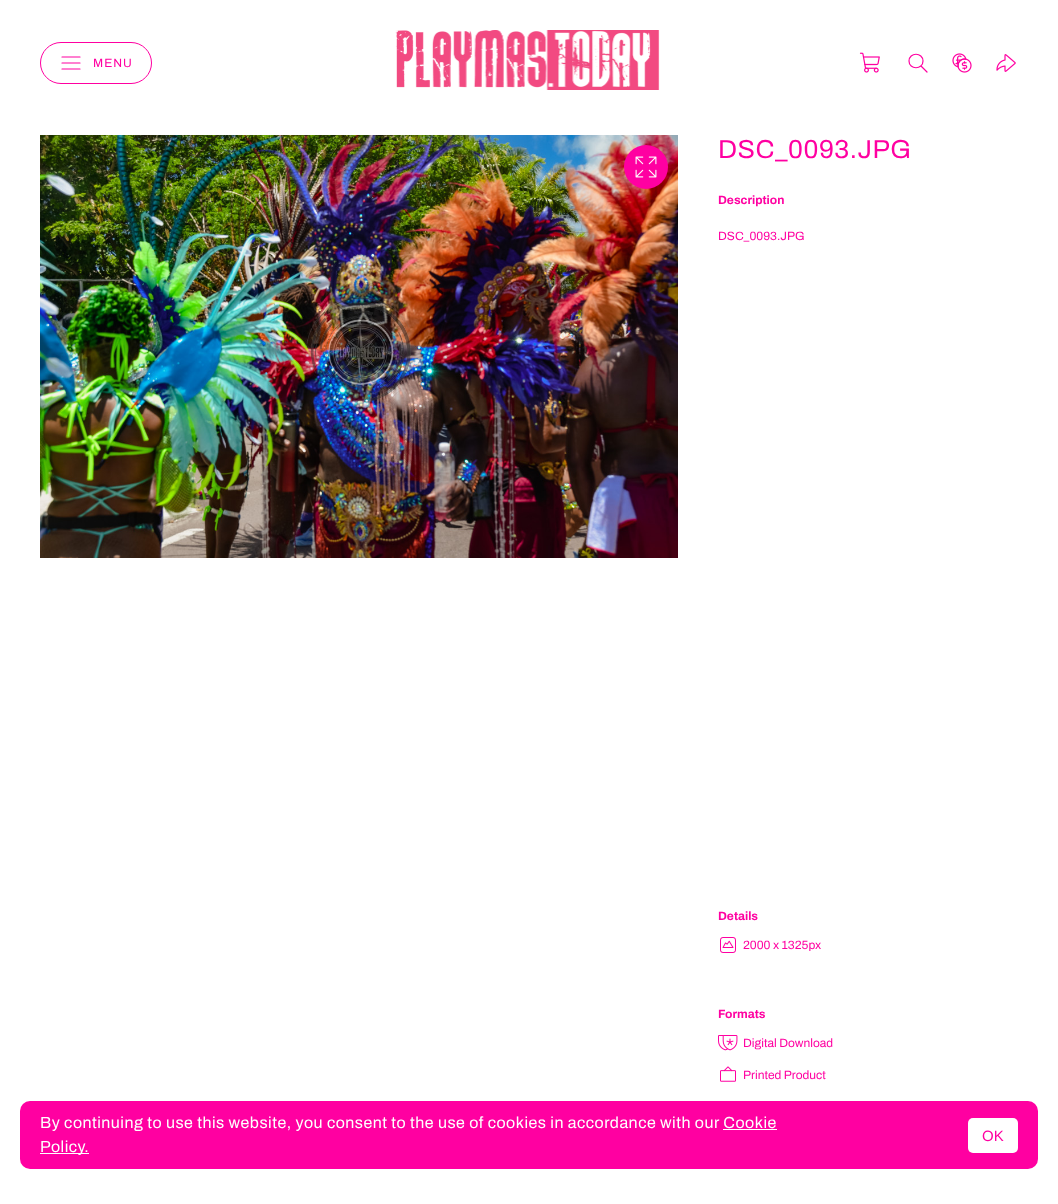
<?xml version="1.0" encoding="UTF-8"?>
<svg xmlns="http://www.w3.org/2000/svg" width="1058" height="1204">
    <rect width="100%" height="100%" fill="#FFFFFF"/>
    <rect x="40.5" y="42.5" width="111" height="41" rx="20.5" fill="none" stroke="#FF00A1"/>
    <path d="M 62 63 H 80 M 62 57 H 80 M 62 69 H 80" fill="none" stroke="#FF00A1" stroke-width="1.2" stroke-linecap="round" stroke-linejoin="round"/>
    <text x="93" y="67" font-family="Archivo" font-size="12" letter-spacing="1" fill="#FF00A1">MENU</text>
    <image x="395" y="30" width="265" height="60" href="img_01.png"/>
    <image x="859" y="52" width="21" height="21" href="img_02.png"/>
    <path d="M 927 72 L 921 66 M 923 61 C 923 70 909 70 909 61 C 909 52 923 52 923 61 Z" fill="none" stroke="#FF00A1" stroke-width="1.2" stroke-linecap="round" stroke-linejoin="round"/>
    <image x="952" y="53" width="20" height="20" href="img_03.png"/>
    <image x="996" y="54" width="20" height="18" href="img_04.png"/>
    <image x="40" y="135" width="638" height="423" href="img_05.png"/>
    <circle cx="646" cy="167" r="22" fill="#FF00A1"/>
    <image x="635" y="156" width="22" height="22" href="img_06.png"/>
    <text x="718" y="158" font-family="Archivo" font-size="26" letter-spacing="0.5" fill="#FF00A1">DSC_0093.JPG</text>
    <text x="718" y="204" font-family="Archivo" font-size="12" font-weight="700" fill="#FF00A1">Description</text>
    <text x="718" y="240" font-family="Archivo" font-size="12" fill="#FF00A1">DSC_0093.JPG</text>
    <text x="718" y="920" font-family="Archivo" font-size="12" font-weight="700" fill="#FF00A1">Details</text>
    <image x="720" y="937" width="16" height="16" href="img_07.png"/>
    <text x="743" y="949" font-family="Archivo" font-size="12" fill="#FF00A1">2000 x 1325px</text>
    <text x="718" y="1018" font-family="Archivo" font-size="12" font-weight="700" fill="#FF00A1">Formats</text>
    <image x="718" y="1035" width="20" height="16" href="img_08.png"/>
    <text x="743" y="1047" font-family="Archivo" font-size="12" fill="#FF00A1">Digital Download</text>
    <image x="720" y="1066" width="16" height="16" href="img_09.png"/>
    <text x="743" y="1079" font-family="Archivo" font-size="12" fill="#FF00A1">Printed Product</text>
    <rect x="20" y="1101" width="1018" height="68" rx="10" fill="#FF00A1"/>
    <text x="40" y="1128" font-family="Archivo" font-size="16" letter-spacing="0.5" fill="#FFFFFF">By continuing to use this website, you consent to the use of cookies in accordance with our Cookie</text>
    <rect x="40" y="1153" width="49" height="1" fill="#FFFFFF"/>
    <text x="40" y="1152" font-family="Archivo" font-size="16" letter-spacing="0.5" fill="#FFFFFF">Policy.</text>
    <rect x="723" y="1129" width="54" height="1" fill="#FFFFFF"/>
    <rect x="968" y="1118" width="50" height="35" rx="5" fill="#FFFFFF"/>
    <text x="982" y="1141" font-family="Liberation Sans" font-size="15" fill="#FF00A1">OK</text>
</svg>
